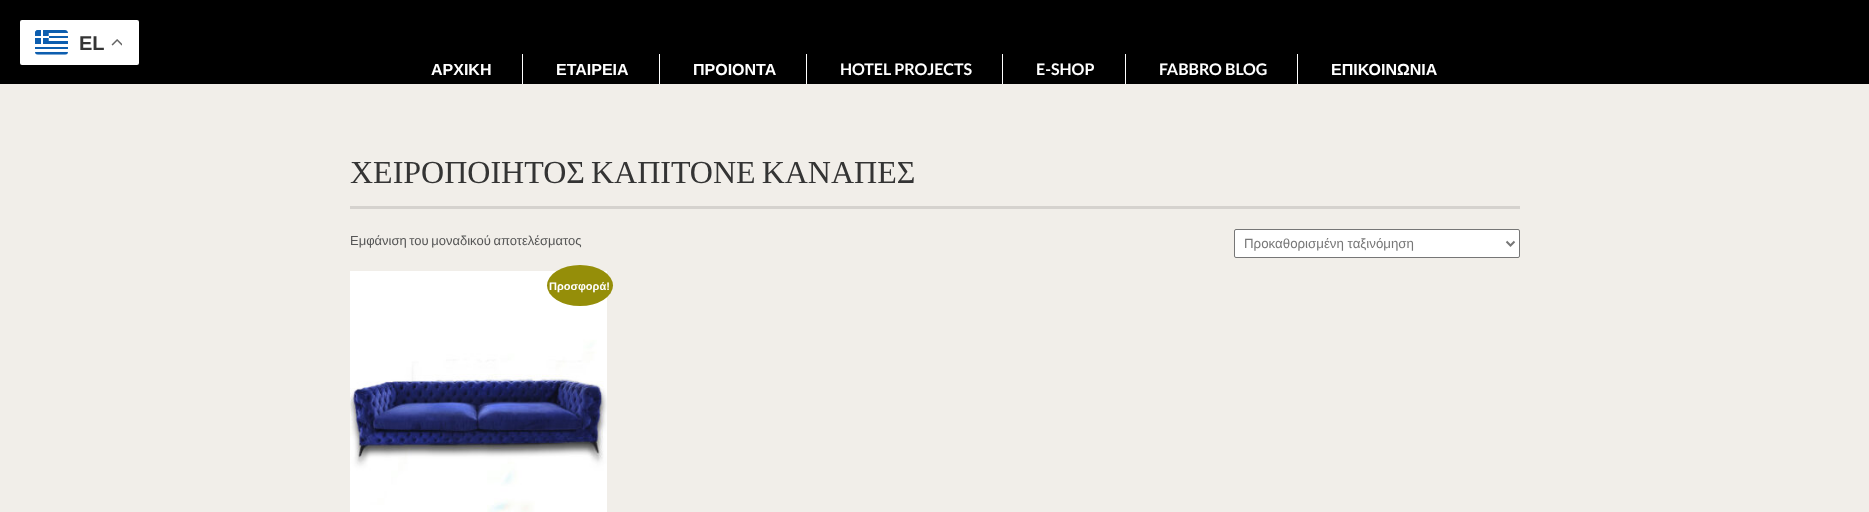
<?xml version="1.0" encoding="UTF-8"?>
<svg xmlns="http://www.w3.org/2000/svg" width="1869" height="512">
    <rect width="100%" height="100%" fill="#F1EEE9"/>
    <rect x="0" y="0" width="1869" height="84" fill="#000000"/>
    <rect x="20" y="20" width="119" height="45" rx="2" fill="#FFFFFF"/>
    <image x="35" y="30" width="33" height="25" href="img_01.png"/>
    <text x="79" y="50" font-family="Liberation Sans" font-size="20" font-weight="700" fill="#343434">EL</text>
    <image x="111" y="39" width="11" height="7" href="img_02.png"/>
    <rect x="522" y="54" width="1" height="30" fill="#FFFFFF"/>
    <text x="431" y="75" font-family="Liberation Sans" font-size="16" font-weight="700" fill="#FFFFFF">ΑΡΧΙΚΗ</text>
    <rect x="659" y="54" width="1" height="30" fill="#FFFFFF"/>
    <text x="556" y="75" font-family="Liberation Sans" font-size="16" font-weight="700" fill="#FFFFFF">ΕΤΑΙΡΕΙΑ</text>
    <rect x="806" y="54" width="1" height="30" fill="#FFFFFF"/>
    <text x="693" y="75" font-family="Liberation Sans" font-size="16" font-weight="700" fill="#FFFFFF">ΠΡΟΙΟΝΤΑ</text>
    <rect x="1002" y="54" width="1" height="30" fill="#FFFFFF"/>
    <text x="840" y="75" font-family="Lato" font-size="16" font-weight="700" fill="#FFFFFF">HOTEL PROJECTS</text>
    <rect x="1125" y="54" width="1" height="30" fill="#FFFFFF"/>
    <text x="1036" y="75" font-family="Lato" font-size="16" font-weight="700" fill="#FFFFFF">E-SHOP</text>
    <rect x="1297" y="54" width="1" height="30" fill="#FFFFFF"/>
    <text x="1159" y="75" font-family="Lato" font-size="16" font-weight="700" fill="#FFFFFF">FABBRO BLOG</text>
    <text x="1331" y="75" font-family="Liberation Sans" font-size="16" font-weight="700" fill="#FFFFFF">ΕΠΙΚΟΙΝΩΝΙΑ</text>
    <rect x="350" y="206" width="1170" height="3" fill="#D5D2CE"/>
    <text x="350" y="183" word-spacing="-2" font-family="Liberation Serif" font-size="32" fill="#343434">ΧΕΙΡΟΠΟΙΗΤΟΣ ΚΑΠΙΤΟΝΕ ΚΑΝΑΠΕΣ</text>
    <text x="350" y="245" word-spacing="-1" font-family="Liberation Sans" font-size="13" fill="#555555">Εμφάνιση του μοναδικού αποτελέσματος</text>
    <rect x="1234.5" y="229.5" width="285" height="28" rx="1.5" fill="#FFFFFF" stroke="#767676"/>
    <path d="M 1506.5 241.5 L 1510.5 245.5 L 1514.5 241.5" fill="none" stroke="#777777" stroke-width="2"/>
    <text x="1244" y="248" font-family="Liberation Sans" font-size="13.3" fill="#777777">Προκαθορισμένη ταξινόμηση</text>
    <image x="350" y="271" width="257" height="241" href="img_03.png"/>
    <ellipse cx="580" cy="285.5" rx="33" ry="20.5" fill="#958E09"/>
    <text x="549" y="290" font-family="Liberation Sans" font-size="11" font-weight="700" fill="#FFFFFF">Προσφορά!</text>
</svg>
